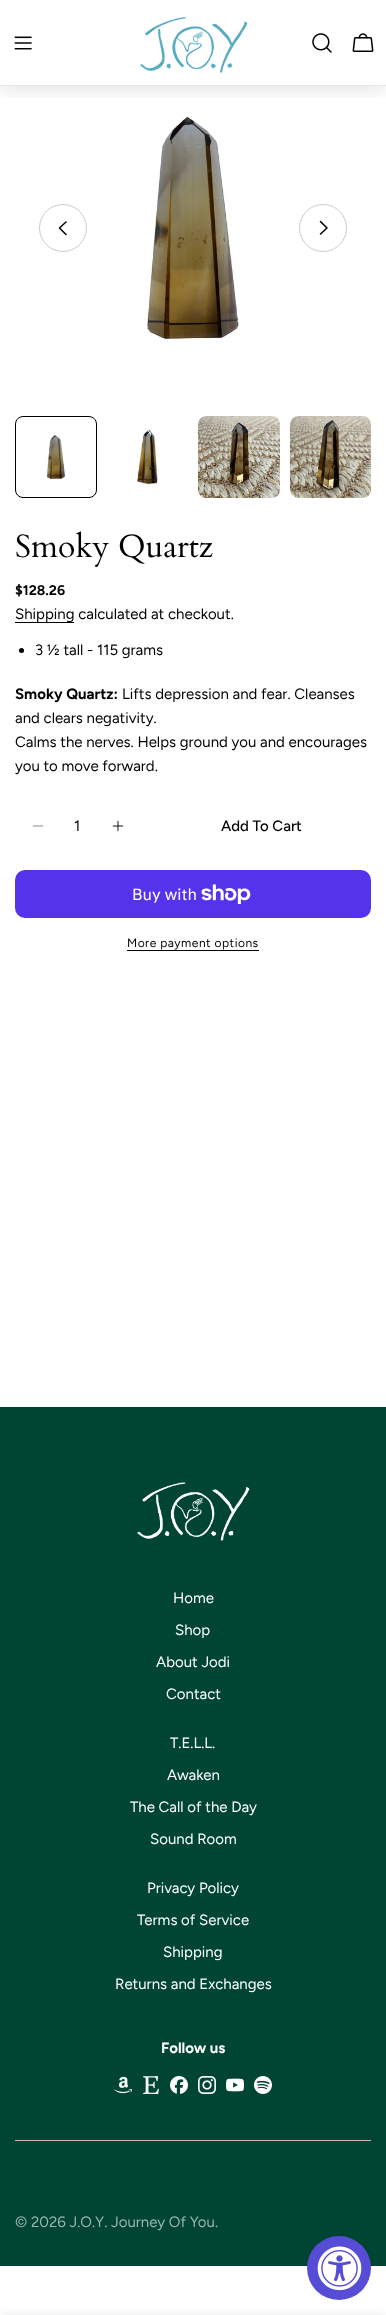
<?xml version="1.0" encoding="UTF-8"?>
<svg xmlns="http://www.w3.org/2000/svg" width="386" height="2315">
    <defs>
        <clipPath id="clip1"><rect x="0" y="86" width="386" height="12"/></clipPath>
        <filter id="blur1" x="-50%" y="-200%" width="200%" height="500%"><feGaussianBlur stdDeviation="9"/></filter>
        <filter id="blur2" x="-50%" y="-200%" width="200%" height="500%"><feGaussianBlur stdDeviation="5"/></filter>
    </defs>
    <rect width="100%" height="100%" fill="#FFFFFF"/>
    <image x="147" y="116" width="92" height="223" href="img_05.png"/>
    <g clip-path="url(#clip1)">
        <rect x="0" y="4" width="386" height="86" fill="#000000" fill-opacity="0.1" filter="url(#blur1)"/>
    </g>
    <rect x="0" y="85" width="386" height="1" fill="#E6E6E6"/>
    <image x="14" y="36" width="18" height="14" href="img_01.png"/>
    <image x="140" y="17" width="108" height="56" href="img_02.png"/>
    <image x="312" y="33" width="20" height="20" href="img_03.png"/>
    <image x="352" y="33" width="22" height="19" href="img_04.png"/>
    <circle cx="63" cy="228" r="23.5" fill="none" stroke="#CCCCCC"/>
    <path d="M 66 234.5 L 59.5 228 L 66 222" fill="none" stroke="#000000" stroke-width="1.5" stroke-linecap="round" stroke-linejoin="round"/>
    <circle cx="323" cy="228" r="23.5" fill="none" stroke="#CCCCCC"/>
    <path d="M 320.5 221.5 L 327 228 L 320.5 234" fill="none" stroke="#000000" stroke-width="1.5" stroke-linecap="round" stroke-linejoin="round"/>
    <image x="46" y="435" width="20" height="45" href="img_06.png"/>
    <rect x="15.5" y="416.5" width="81" height="81" rx="7.5" fill="none" stroke="#000000"/>
    <image x="137" y="429" width="22" height="56" href="img_07.png"/>
    <image x="198" y="416" width="82" height="82" href="img_08.png"/>
    <image x="290" y="416" width="81" height="82" href="img_09.png"/>
    <text x="15" y="557" font-family="Cardo" font-size="32" fill="#000000">Smoky Quartz</text>
    <text x="15" y="595" font-family="Figtree" font-size="14" font-weight="700" fill="#000000">$128.26</text>
    <rect x="15" y="622" width="59" height="1" fill="#000000"/>
    <text x="15" y="619" font-family="Figtree" font-size="15" fill="#000000">Shipping calculated at checkout.</text>
    <circle cx="21.5" cy="650.5" r="2.5" fill="#000000"/>
    <text x="35" y="655" font-family="Figtree" font-size="15" fill="#000000">3 ½ tall - 115 grams</text>
    <text x="15" y="699" font-family="Figtree" font-size="15" font-weight="700" fill="#000000">Smoky Quartz:</text>
    <text x="122" y="699" font-family="Figtree" font-size="15" fill="#000000">Lifts depression and fear. Cleanses</text>
    <text font-family="Figtree" font-size="15" fill="#000000">
        <tspan x="15" y="723">and clears negativity.</tspan>
        <tspan x="15" y="747">Calms the nerves. Helps ground you and encourages</tspan>
        <tspan x="15" y="771">you to move forward.</tspan>
    </text>
    <image x="32" y="825" width="12" height="2" href="img_10.png"/>
    <text x="74" y="831" font-family="Figtree" font-size="15" fill="#000000">1</text>
    <image x="112" y="820" width="12" height="12" href="img_11.png"/>
    <text x="221" y="831" font-family="Figtree" font-size="15" font-weight="500" fill="#000000">Add To Cart</text>
    <rect x="15" y="870" width="356" height="48" rx="10" fill="#5433EB"/>
    <text x="132" y="900" font-family="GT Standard" font-size="16" fill="#FFFFFF">Buy with</text>
    <image x="201" y="884" width="50" height="20" href="img_12.png"/>
    <text x="127" y="947" font-family="Figtree" font-size="12" letter-spacing="0.5" fill="#000000">More payment options</text>
    <rect x="127" y="950" width="132" height="1" fill="#000000"/>
    <rect x="0" y="1407" width="386" height="859" fill="#004533"/>
    <image x="137" y="1482" width="113" height="59" href="img_13.png"/>
    <text x="173" y="1603" font-family="Figtree" font-size="15" fill="#FFFFFF">Home</text>
    <text x="175" y="1635" font-family="Figtree" font-size="15" fill="#FFFFFF">Shop</text>
    <text x="156" y="1667" font-family="Figtree" font-size="15" fill="#FFFFFF">About Jodi</text>
    <text x="166" y="1699" font-family="Figtree" font-size="15" fill="#FFFFFF">Contact</text>
    <text x="170" y="1748" font-family="Figtree" font-size="15" fill="#FFFFFF">T.E.L.L.</text>
    <text x="167" y="1780" font-family="Figtree" font-size="15" fill="#FFFFFF">Awaken</text>
    <text x="130" y="1812" font-family="Figtree" font-size="15" fill="#FFFFFF">The Call of the Day</text>
    <text x="150" y="1844" font-family="Figtree" font-size="15" fill="#FFFFFF">Sound Room</text>
    <text x="147" y="1893" font-family="Figtree" font-size="15" fill="#FFFFFF">Privacy Policy</text>
    <text x="137" y="1925" font-family="Figtree" font-size="15" fill="#FFFFFF">Terms of Service</text>
    <text x="163" y="1957" font-family="Figtree" font-size="15" fill="#FFFFFF">Shipping</text>
    <text x="115" y="1989" font-family="Figtree" font-size="15" fill="#FFFFFF">Returns and Exchanges</text>
    <text x="161" y="2053" font-family="Figtree" font-size="15" font-weight="700" fill="#FFFFFF">Follow us</text>
    <image x="114" y="2076" width="18" height="18" href="img_14.png"/>
    <image x="143" y="2076" width="16" height="18" href="img_15.png"/>
    <image x="170" y="2076" width="18" height="18" href="img_16.png"/>
    <image x="198" y="2076" width="18" height="18" href="img_17.png"/>
    <image x="226" y="2078" width="18" height="14" href="img_18.png"/>
    <image x="254" y="2076" width="18" height="18" href="img_19.png"/>
    <rect x="15" y="2140" width="356" height="1" fill="#C6BFB1"/>
    <text x="15" y="2227" font-family="Figtree" font-size="15" fill="#99B5AD">© 2026 J.O.Y. Journey Of You.</text>
    <rect x="0" y="2315" width="386" height="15" fill="#000000" fill-opacity="0.09" filter="url(#blur2)"/>
    <circle cx="339" cy="2268" r="32" fill="#574CD5"/>
    <image x="317" y="2246" width="45" height="45" href="img_20.png"/>
</svg>
